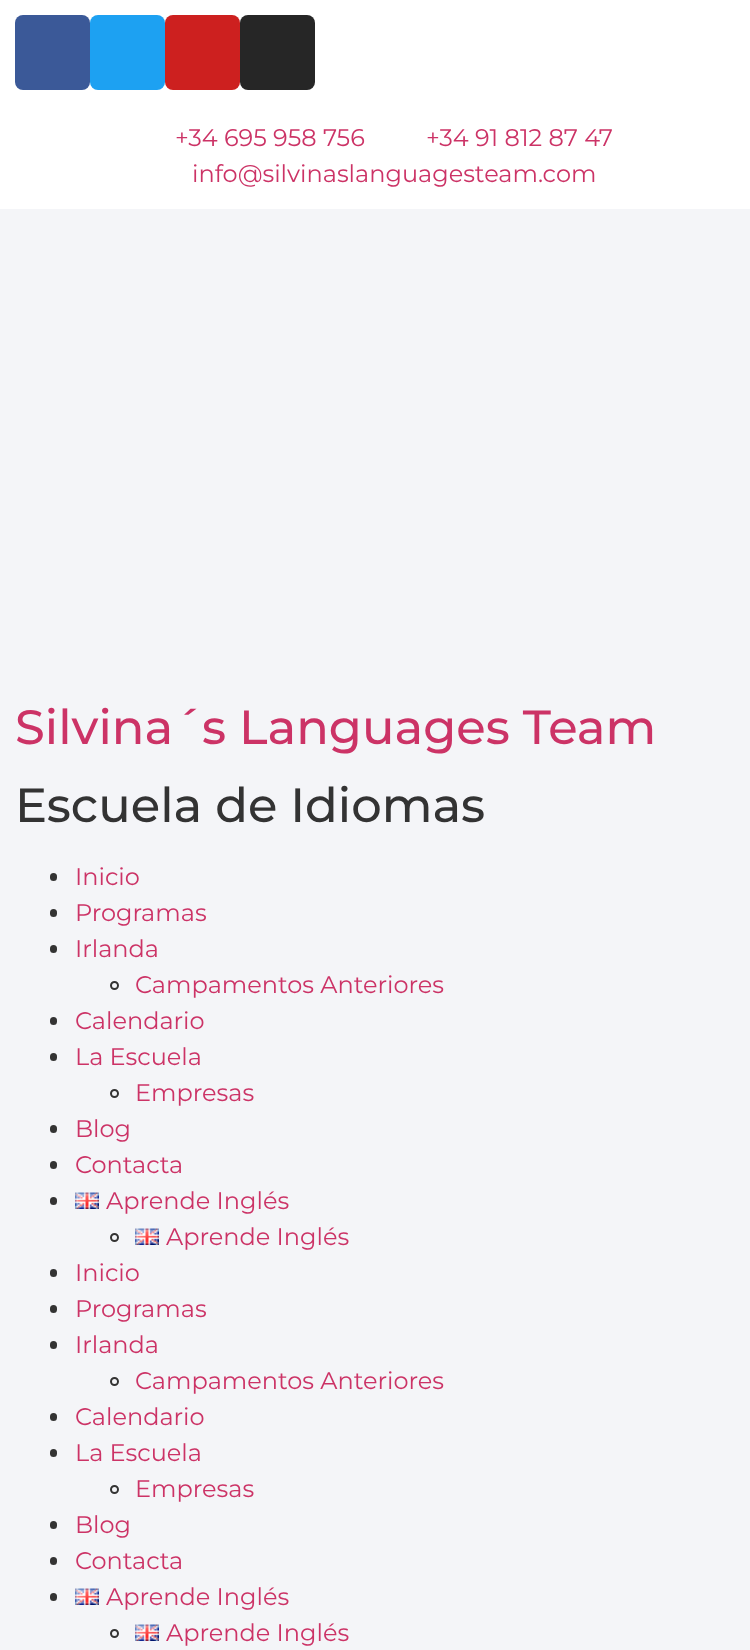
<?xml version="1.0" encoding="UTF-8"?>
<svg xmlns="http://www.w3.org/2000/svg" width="750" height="1650">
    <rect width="100%" height="100%" fill="#FFFFFF"/>
    <rect x="15" y="15" width="75" height="75" rx="8" fill="#3B5998"/>
    <rect x="90" y="15" width="75" height="75" rx="8" fill="#1DA1F2"/>
    <rect x="165" y="15" width="75" height="75" rx="8" fill="#CD201F"/>
    <rect x="240" y="15" width="75" height="75" rx="8" fill="#262626"/>
    <text x="175" y="146" font-family="Montserrat" font-size="24" fill="#CC3366">+34 695 958 756</text>
    <text x="426" y="146" font-family="Montserrat" font-size="24" fill="#CC3366">+34 91 812 87 47</text>
    <text x="192" y="182" font-family="Montserrat" font-size="24" fill="#CC3366">info@silvinaslanguagesteam.com</text>
    <rect x="0" y="209" width="750" height="1441" fill="#F4F5F8"/>
    <text x="15" y="744" font-family="Montserrat" font-size="48" font-weight="500" fill="#CC3366">Silvina´s Languages Team</text>
    <text x="15" y="822" font-family="Montserrat" font-size="48" font-weight="500" fill="#333333">Escuela de Idiomas</text>
    <rect x="50" y="873" width="7" height="8" rx="3.5" fill="#333333"/>
    <text x="75" y="885" font-family="Montserrat" font-size="24" fill="#CC3366">Inicio</text>
    <rect x="50" y="909" width="7" height="8" rx="3.5" fill="#333333"/>
    <text x="75" y="921" font-family="Montserrat" font-size="24" fill="#CC3366">Programas</text>
    <rect x="50" y="945" width="7" height="8" rx="3.5" fill="#333333"/>
    <text x="75" y="957" font-family="Montserrat" font-size="24" fill="#CC3366">Irlanda</text>
    <circle cx="114.5" cy="985.5" r="3.5" fill="none" stroke="#333333" stroke-width="2"/>
    <text x="135" y="993" font-family="Montserrat" font-size="24" fill="#CC3366">Campamentos Anteriores</text>
    <rect x="50" y="1017" width="7" height="8" rx="3.5" fill="#333333"/>
    <text x="75" y="1029" font-family="Montserrat" font-size="24" fill="#CC3366">Calendario</text>
    <rect x="50" y="1053" width="7" height="8" rx="3.5" fill="#333333"/>
    <text x="75" y="1065" font-family="Montserrat" font-size="24" fill="#CC3366">La Escuela</text>
    <circle cx="114.5" cy="1093.5" r="3.5" fill="none" stroke="#333333" stroke-width="2"/>
    <text x="135" y="1101" font-family="Montserrat" font-size="24" fill="#CC3366">Empresas</text>
    <rect x="50" y="1125" width="7" height="8" rx="3.5" fill="#333333"/>
    <text x="75" y="1137" font-family="Montserrat" font-size="24" fill="#CC3366">Blog</text>
    <rect x="50" y="1161" width="7" height="8" rx="3.5" fill="#333333"/>
    <text x="75" y="1173" font-family="Montserrat" font-size="24" fill="#CC3366">Contacta</text>
    <rect x="50" y="1197" width="7" height="8" rx="3.5" fill="#333333"/>
    <image x="75" y="1192" width="24" height="17" href="img_01.png"/>
    <text x="106" y="1209" font-family="Montserrat" font-size="24" fill="#CC3366">Aprende Inglés</text>
    <circle cx="114.5" cy="1237.5" r="3.5" fill="none" stroke="#333333" stroke-width="2"/>
    <image x="135" y="1228" width="24" height="17" href="img_01.png"/>
    <text x="166" y="1245" font-family="Montserrat" font-size="24" fill="#CC3366">Aprende Inglés</text>
    <rect x="50" y="1269" width="7" height="8" rx="3.5" fill="#333333"/>
    <text x="75" y="1281" font-family="Montserrat" font-size="24" fill="#CC3366">Inicio</text>
    <rect x="50" y="1305" width="7" height="8" rx="3.5" fill="#333333"/>
    <text x="75" y="1317" font-family="Montserrat" font-size="24" fill="#CC3366">Programas</text>
    <rect x="50" y="1341" width="7" height="8" rx="3.5" fill="#333333"/>
    <text x="75" y="1353" font-family="Montserrat" font-size="24" fill="#CC3366">Irlanda</text>
    <circle cx="114.5" cy="1381.5" r="3.5" fill="none" stroke="#333333" stroke-width="2"/>
    <text x="135" y="1389" font-family="Montserrat" font-size="24" fill="#CC3366">Campamentos Anteriores</text>
    <rect x="50" y="1413" width="7" height="8" rx="3.5" fill="#333333"/>
    <text x="75" y="1425" font-family="Montserrat" font-size="24" fill="#CC3366">Calendario</text>
    <rect x="50" y="1449" width="7" height="8" rx="3.5" fill="#333333"/>
    <text x="75" y="1461" font-family="Montserrat" font-size="24" fill="#CC3366">La Escuela</text>
    <circle cx="114.5" cy="1489.5" r="3.5" fill="none" stroke="#333333" stroke-width="2"/>
    <text x="135" y="1497" font-family="Montserrat" font-size="24" fill="#CC3366">Empresas</text>
    <rect x="50" y="1521" width="7" height="8" rx="3.5" fill="#333333"/>
    <text x="75" y="1533" font-family="Montserrat" font-size="24" fill="#CC3366">Blog</text>
    <rect x="50" y="1557" width="7" height="8" rx="3.5" fill="#333333"/>
    <text x="75" y="1569" font-family="Montserrat" font-size="24" fill="#CC3366">Contacta</text>
    <rect x="50" y="1593" width="7" height="8" rx="3.5" fill="#333333"/>
    <image x="75" y="1588" width="24" height="17" href="img_01.png"/>
    <text x="106" y="1605" font-family="Montserrat" font-size="24" fill="#CC3366">Aprende Inglés</text>
    <circle cx="114.5" cy="1633.5" r="3.5" fill="none" stroke="#333333" stroke-width="2"/>
    <image x="135" y="1624" width="24" height="17" href="img_01.png"/>
    <text x="166" y="1641" font-family="Montserrat" font-size="24" fill="#CC3366">Aprende Inglés</text>
</svg>
